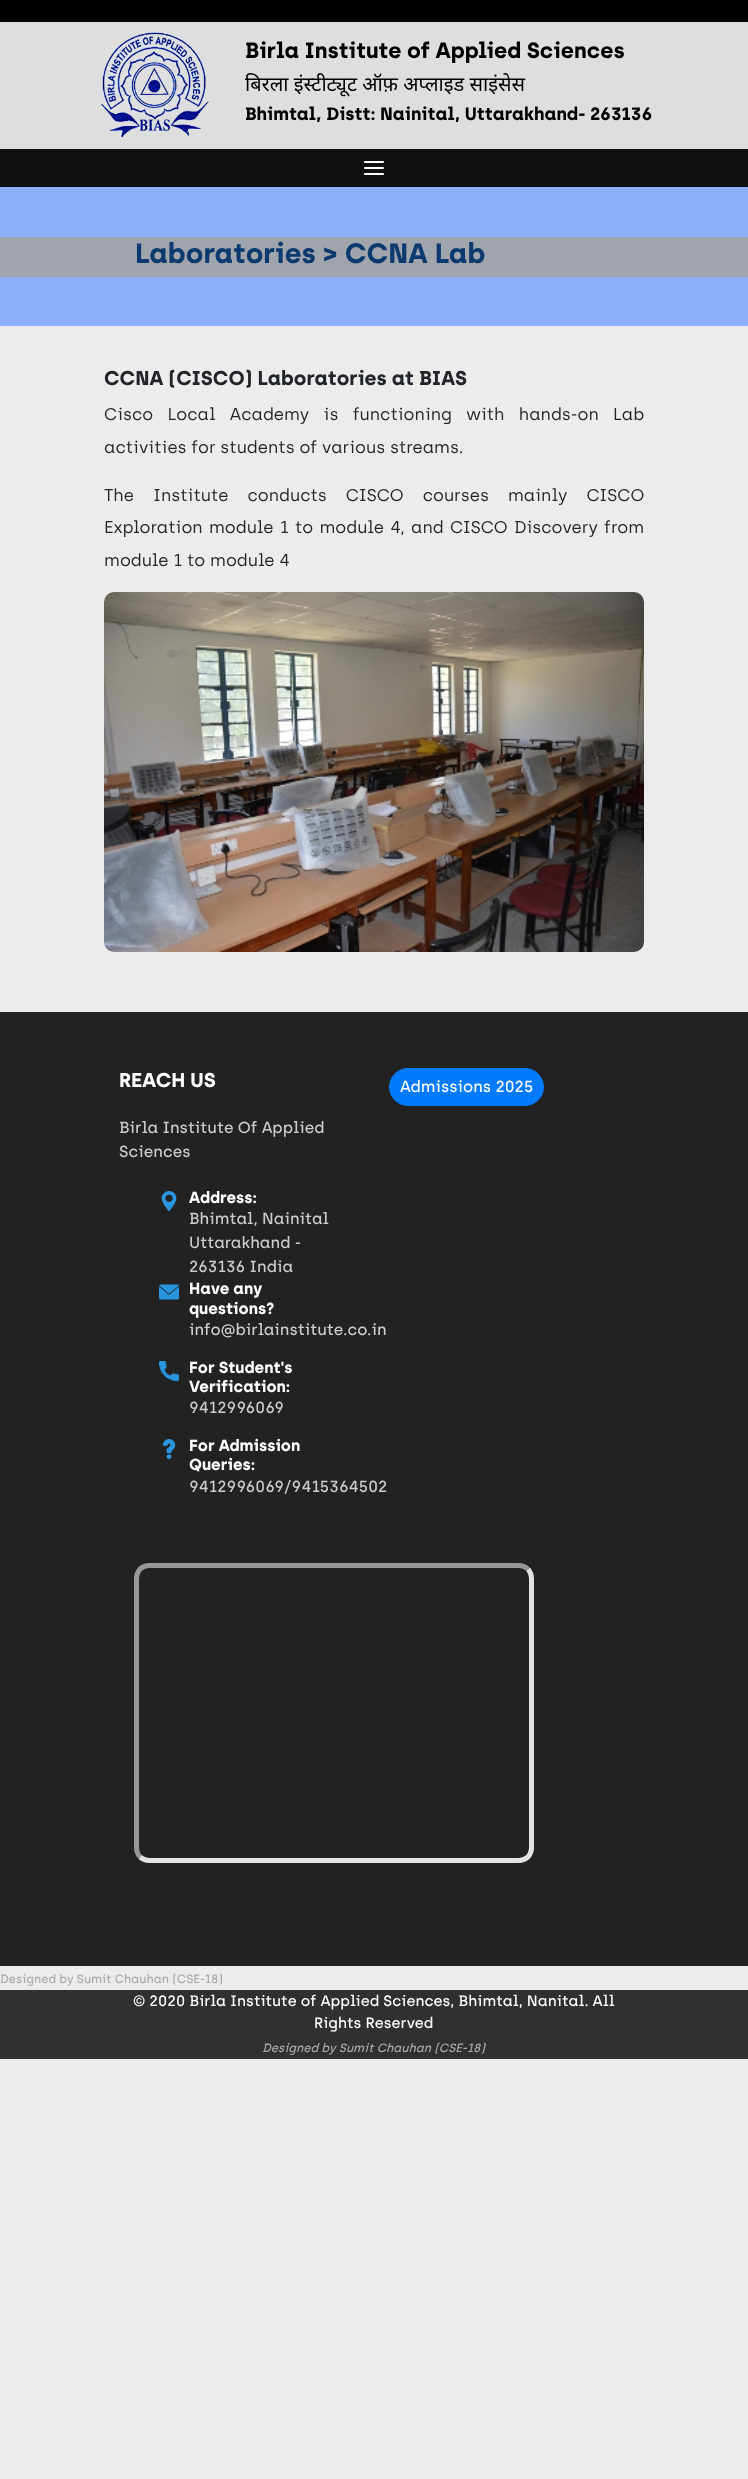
<?xml version="1.0" encoding="UTF-8"?>
<svg xmlns="http://www.w3.org/2000/svg" width="748" height="2479">
    <rect width="100%" height="100%" fill="#ECECEC"/>
    <rect x="0" y="0" width="748" height="22" fill="#000000"/>
    <rect x="0" y="22" width="748" height="127" fill="#DEDEDE"/>
    <image x="100" y="32" width="109" height="106" href="img_01.png"/>
    <text x="245" y="58" font-family="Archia" font-size="22" font-weight="700" fill="#000000">Birla Institute of Applied Sciences</text>
    <text x="245" y="91" font-family="Noto Sans" font-size="20" fill="#000000">बिरला इंस्टीट्यूट ऑफ़ अप्लाइड साइंसेस</text>
    <text x="245" y="120" font-family="Archia" font-size="18" font-weight="700" fill="#000000">Bhimtal, Distt: Nainital, Uttarakhand- 263136</text>
    <rect x="0" y="149" width="748" height="38" fill="#101010"/>
    <image x="364" y="161" width="20" height="14" href="img_02.png"/>
    <rect x="0" y="187" width="748" height="50" fill="#8EB0FA"/>
    <rect x="0" y="237" width="748" height="40" fill="#A0A5AD"/>
    <text x="135" y="263" font-family="Archia" font-size="28" font-weight="700" fill="#0C3A6F">Laboratories &gt; CCNA Lab</text>
    <rect x="0" y="277" width="748" height="49" fill="#8EB0FA"/>
    <text x="104" y="385" font-family="Archia" font-size="20" font-weight="700" fill="#212529">CCNA (CISCO) Laboratories at BIAS</text>
    <text font-family="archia" font-size="17" fill="#212529">
        <tspan x="104" y="420" word-spacing="9.5">Cisco Local Academy is functioning with hands-on Lab</tspan>
        <tspan x="104" y="453">activities for students of various streams.</tspan>
    </text>
    <text font-family="archia" font-size="17" fill="#212529">
        <tspan x="104" y="501" word-spacing="14.25">The Institute conducts CISCO courses mainly CISCO</tspan>
        <tspan x="104" y="533" word-spacing="1.5">Exploration module 1 to module 4, and CISCO Discovery from</tspan>
        <tspan x="104" y="566">module 1 to module 4</tspan>
    </text>
    <image x="104" y="592" width="540" height="360" href="img_03.png"/>
    <rect x="0" y="1012" width="748" height="954" fill="#222222"/>
    <text x="119" y="1087" font-family="Archia" font-size="20" font-weight="700" fill="#FFFFFF">REACH US</text>
    <text font-family="Archia" font-size="16" font-weight="500" fill="#CCCCCC">
        <tspan x="119" y="1133">Birla Institute Of Applied</tspan>
        <tspan x="119" y="1157">Sciences</tspan>
    </text>
    <image x="161" y="1191" width="16" height="20" href="img_04.png"/>
    <text x="189" y="1203" font-family="Archia" font-size="16" font-weight="700" fill="#FFFFFF">Address:</text>
    <text font-family="Archia" font-size="16" font-weight="500" fill="#CCCCCC">
        <tspan x="189" y="1224">Bhimtal, Nainital</tspan>
        <tspan x="189" y="1248">Uttarakhand -</tspan>
        <tspan x="189" y="1272">263136 India</tspan>
    </text>
    <image x="159" y="1284" width="20" height="16" href="img_05.png"/>
    <text font-family="Archia" font-size="16" font-weight="700" fill="#FFFFFF">
        <tspan x="189" y="1294">Have any</tspan>
        <tspan x="189" y="1314">questions?</tspan>
    </text>
    <text x="189" y="1335" font-family="Archia" font-size="16" font-weight="500" fill="#CCCCCC">info@birlainstitute.co.in</text>
    <image x="159" y="1361" width="20" height="20" href="img_06.png"/>
    <text font-family="Archia" font-size="16" font-weight="700" fill="#FFFFFF">
        <tspan x="189" y="1373">For Student's</tspan>
        <tspan x="189" y="1392">Verification:</tspan>
    </text>
    <text x="189" y="1413" font-family="Archia" font-size="16" font-weight="500" fill="#CCCCCC">9412996069</text>
    <image x="162" y="1439" width="14" height="20" href="img_07.png"/>
    <text font-family="Archia" font-size="16" font-weight="700" fill="#FFFFFF">
        <tspan x="189" y="1451">For Admission</tspan>
        <tspan x="189" y="1470">Queries:</tspan>
    </text>
    <text x="189" y="1492" font-family="Archia" font-size="16" font-weight="500" fill="#CCCCCC">9412996069/9415364502</text>
    <rect x="389.5" y="1068.5" width="154" height="37" rx="18.5" fill="#007BFF" stroke="#007BFF"/>
    <text x="400" y="1092" font-family="Archia" font-size="16" font-weight="500" fill="#FFFFFF">Admissions 2025</text>
    <path d="M 528 1569 C 530 1571.5 531.5 1574.5 531.5 1578 V 1848 C 531.5 1851.5 530 1854.5 528 1857 C 525.5 1859 522.5 1860.5 519 1860.5 H 149 C 145.5 1860.5 142.5 1859 140 1857" fill="none" stroke="#E3E3E3" stroke-width="5"/>
    <path d="M 140 1857 C 138 1854.5 136.5 1851.5 136.5 1848 V 1578 C 136.5 1574.5 138 1571.5 140 1569 C 142.5 1567 145.5 1565.5 149 1565.5 H 519 C 522.5 1565.5 525.5 1567 528 1569" fill="none" stroke="#979797" stroke-width="5"/>
    <text x="0" y="1983" font-family="Archia" font-size="12" font-weight="500" fill="#AAAAAA">Designed by Sumit Chauhan (CSE-18)</text>
    <rect x="0" y="1990" width="748" height="69" fill="#303030"/>
    <text x="133" y="2006" font-family="Archia" font-size="15" font-weight="500" fill="#FFFFFF">© 2020 Birla Institute of Applied Sciences, Bhimtal, Nanital. All</text>
    <text x="314" y="2028" font-family="Archia" font-size="15" font-weight="500" fill="#FFFFFF">Rights Reserved</text>
    <text x="262" y="2052" font-family="Archia" font-size="12" font-weight="500" font-style="italic" fill="#AAAAAA">Designed by Sumit Chauhan (CSE-18)</text>
</svg>
